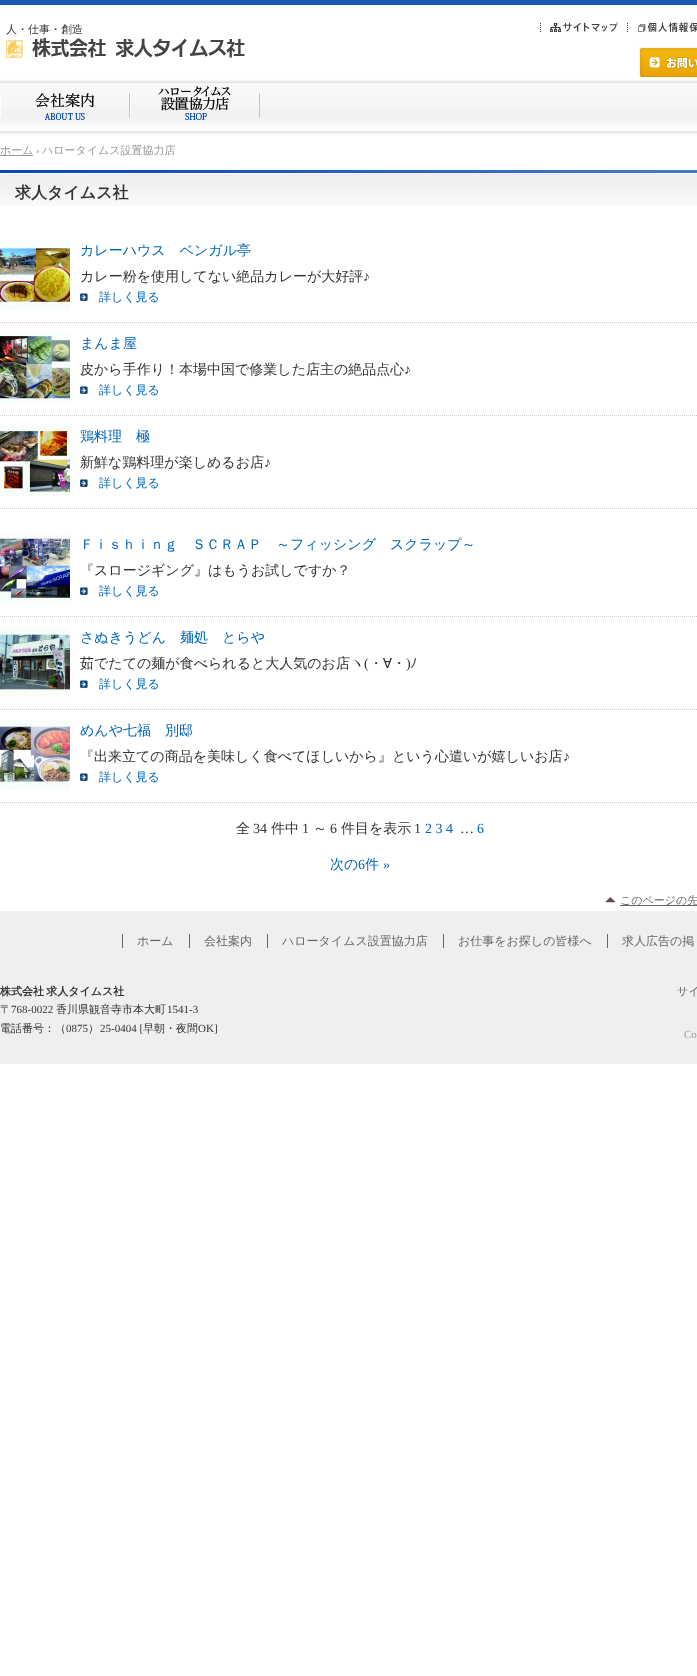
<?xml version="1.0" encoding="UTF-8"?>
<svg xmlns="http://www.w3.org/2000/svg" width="697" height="1676">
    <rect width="100%" height="100%" fill="#FFFFFF"/>
    <image x="0" y="0" width="697" height="135" href="img_01.png"/>
    <text x="6" y="33" font-family="WenQuanYi Zen Hei" font-size="11" font-weight="500" fill="#333333">人・仕事・創造</text>
    <image x="540" y="23" width="1" height="9" href="img_02.png"/>
    <image x="627" y="23" width="1" height="9" href="img_02.png"/>
    <image x="550" y="22" width="68" height="10" href="img_03.png"/>
    <image x="638" y="22" width="59" height="10" href="img_04.png"/>
    <image x="6" y="38" width="239" height="20" href="img_05.png"/>
    <image x="639" y="47" width="58" height="31" href="img_06.png"/>
    <image x="0" y="93" width="130" height="27" href="img_07.png"/>
    <image x="130" y="86" width="130" height="34" href="img_08.png"/>
    <rect x="0" y="155" width="33" height="1" fill="#999999"/>
    <text x="0" y="154" font-family="WenQuanYi Zen Hei" font-size="11" font-weight="500" fill="#999999">ホーム</text>
    <text x="36" y="154" font-family="Liberation Serif" font-size="11" fill="#999999">›</text>
    <text x="42" y="154" font-family="WenQuanYi Zen Hei" font-size="11" font-weight="500" fill="#999999">ハロータイムス設置協力店</text>
    <image x="0" y="170" width="697" height="36" href="img_09.png"/>
    <text x="15" y="198" font-family="WenQuanYi Zen Hei" font-size="16" font-weight="700" fill="#333333">求人タイムス社</text>
    <image x="0" y="322" width="697" height="1" href="img_10.png"/>
    <image x="0" y="240" width="70" height="70" href="img_11.png"/>
    <text x="80" y="255" font-family="WenQuanYi Zen Hei" font-size="14" font-weight="500" fill="#0165BA">カレーハウス　ベンガル亭</text>
    <text x="80" y="281" font-family="WenQuanYi Zen Hei" font-size="14" font-weight="500" fill="#333333">カレー粉を使用してない絶品カレーが大好評</text>
    <text x="363" y="281" font-family="Liberation Serif" font-size="14" fill="#333333">♪</text>
    <image x="80" y="293" width="8" height="8" href="img_12.png"/>
    <text x="99" y="301" font-family="WenQuanYi Zen Hei" font-size="12" font-weight="500" fill="#0165BA">詳しく見る</text>
    <image x="0" y="415" width="697" height="1" href="img_10.png"/>
    <image x="0" y="333" width="70" height="70" href="img_13.png"/>
    <text x="80" y="348" font-family="WenQuanYi Zen Hei" font-size="14" font-weight="500" fill="#0165BA">まんま屋</text>
    <text x="80" y="374" font-family="WenQuanYi Zen Hei" font-size="14" font-weight="500" fill="#333333">皮から手作り！本場中国で修業した店主の絶品点心</text>
    <text x="404" y="374" font-family="Liberation Serif" font-size="14" fill="#333333">♪</text>
    <image x="80" y="386" width="8" height="8" href="img_12.png"/>
    <text x="99" y="394" font-family="WenQuanYi Zen Hei" font-size="12" font-weight="500" fill="#0165BA">詳しく見る</text>
    <image x="0" y="508" width="697" height="1" href="img_10.png"/>
    <image x="0" y="426" width="70" height="70" href="img_14.png"/>
    <text x="80" y="441" font-family="WenQuanYi Zen Hei" font-size="14" font-weight="500" fill="#0165BA">鶏料理　極</text>
    <text x="80" y="467" font-family="WenQuanYi Zen Hei" font-size="14" font-weight="500" fill="#333333">新鮮な鶏料理が楽しめるお店</text>
    <text x="264" y="467" font-family="Liberation Serif" font-size="14" fill="#333333">♪</text>
    <image x="80" y="479" width="8" height="8" href="img_12.png"/>
    <text x="99" y="487" font-family="WenQuanYi Zen Hei" font-size="12" font-weight="500" fill="#0165BA">詳しく見る</text>
    <image x="0" y="616" width="697" height="1" href="img_10.png"/>
    <image x="0" y="534" width="70" height="70" href="img_15.png"/>
    <text x="80" y="549" font-family="WenQuanYi Zen Hei" font-size="14" font-weight="500" fill="#0165BA">Ｆｉｓｈｉｎｇ　ＳＣＲＡＰ　～フィッシング　スクラップ～</text>
    <text x="80" y="575" font-family="WenQuanYi Zen Hei" font-size="14" font-weight="500" fill="#333333">『スロージギング』はもうお試しですか？</text>
    <image x="80" y="587" width="8" height="8" href="img_12.png"/>
    <text x="99" y="595" font-family="WenQuanYi Zen Hei" font-size="12" font-weight="500" fill="#0165BA">詳しく見る</text>
    <image x="0" y="709" width="697" height="1" href="img_10.png"/>
    <image x="0" y="627" width="70" height="70" href="img_16.png"/>
    <text x="80" y="642" font-family="WenQuanYi Zen Hei" font-size="14" font-weight="500" fill="#0165BA">さぬきうどん　麺処　とらや</text>
    <text x="80" y="668" font-family="WenQuanYi Zen Hei" font-size="14" font-weight="500" fill="#333333">茹でたての麺が食べられると大人気のお店ヽ</text>
    <text x="364" y="668" font-family="Liberation Serif" font-size="14" fill="#333333">(</text>
    <text x="369" y="668" font-family="WenQuanYi Zen Hei" font-size="14" font-weight="500" fill="#333333">・∀・</text>
    <text x="406" y="668" font-family="Liberation Serif" font-size="14" fill="#333333">)</text>
    <text x="410" y="668" font-family="IPAPGothic" font-size="14" fill="#333333">ﾉ</text>
    <image x="80" y="680" width="8" height="8" href="img_12.png"/>
    <text x="99" y="688" font-family="WenQuanYi Zen Hei" font-size="12" font-weight="500" fill="#0165BA">詳しく見る</text>
    <image x="0" y="802" width="697" height="1" href="img_10.png"/>
    <image x="0" y="720" width="70" height="70" href="img_17.png"/>
    <text x="80" y="735" font-family="WenQuanYi Zen Hei" font-size="14" font-weight="500" fill="#0165BA">めんや七福　別邸</text>
    <text x="80" y="761" font-family="WenQuanYi Zen Hei" font-size="14" font-weight="500" fill="#333333">『出来立ての商品を美味しく食べてほしいから』という心遣いが嬉しいお店</text>
    <text x="563" y="761" font-family="Liberation Serif" font-size="14" fill="#333333">♪</text>
    <image x="80" y="773" width="8" height="8" href="img_12.png"/>
    <text x="99" y="781" font-family="WenQuanYi Zen Hei" font-size="12" font-weight="500" fill="#0165BA">詳しく見る</text>
    <text x="236" y="833" font-family="WenQuanYi Zen Hei" font-size="14" font-weight="500" fill="#333333">全</text>
    <text x="253" y="833" font-family="Liberation Serif" font-size="14" fill="#333333">34</text>
    <text x="271" y="833" font-family="WenQuanYi Zen Hei" font-size="14" font-weight="500" fill="#333333">件中</text>
    <text x="302" y="833" font-family="Liberation Serif" font-size="14" fill="#333333">1</text>
    <text x="313" y="833" font-family="WenQuanYi Zen Hei" font-size="14" font-weight="500" fill="#333333">～</text>
    <text x="330" y="833" font-family="Liberation Serif" font-size="14" fill="#333333">6</text>
    <text x="341" y="833" font-family="WenQuanYi Zen Hei" font-size="14" font-weight="500" fill="#333333">件目を表示</text>
    <text x="414" y="833" font-family="Liberation Serif" font-size="14" fill="#333333">1</text>
    <text x="425" y="833" font-family="Liberation Serif" font-size="14" fill="#0165BA">2 3 4</text>
    <text x="477" y="833" font-family="Liberation Serif" font-size="14" fill="#0165BA">6</text>
    <text x="460" y="833" font-family="Liberation Serif" font-size="14" fill="#333333">…</text>
    <text x="330" y="869" font-family="WenQuanYi Zen Hei" font-size="14" font-weight="500" fill="#0165BA">次の</text>
    <text x="358" y="869" font-family="Liberation Serif" font-size="14" fill="#0165BA">6</text>
    <text x="365" y="869" font-family="WenQuanYi Zen Hei" font-size="14" font-weight="500" fill="#0165BA">件</text>
    <text x="383" y="869" font-family="Liberation Serif" font-size="14" fill="#0165BA">»</text>
    <image x="605" y="897" width="11" height="6" href="img_18.png"/>
    <rect x="620" y="905" width="77" height="1" fill="#666666"/>
    <text x="620" y="904" font-family="WenQuanYi Zen Hei" font-size="11" font-weight="500" fill="#666666">このページの先</text>
    <rect x="0" y="911" width="697" height="153" fill="#EFEFEF"/>
    <text x="137" y="945" font-family="WenQuanYi Zen Hei" font-size="12" font-weight="500" fill="#666666">ホーム</text>
    <rect x="122" y="934" width="1" height="14" fill="#666666"/>
    <text x="204" y="945" font-family="WenQuanYi Zen Hei" font-size="12" font-weight="500" fill="#666666">会社案内</text>
    <rect x="189" y="934" width="1" height="14" fill="#666666"/>
    <text x="282" y="945" font-family="WenQuanYi Zen Hei" font-size="12" font-weight="500" fill="#666666">ハロータイムス設置協力店</text>
    <rect x="267" y="934" width="1" height="14" fill="#666666"/>
    <text x="458" y="945" font-family="WenQuanYi Zen Hei" font-size="12" font-weight="500" fill="#666666">お仕事をお探しの皆様へ</text>
    <rect x="443" y="934" width="1" height="14" fill="#666666"/>
    <text x="622" y="945" font-family="WenQuanYi Zen Hei" font-size="12" font-weight="500" fill="#666666">求人広告の掲</text>
    <rect x="607" y="934" width="1" height="14" fill="#666666"/>
    <text x="0" y="995" word-spacing="-1" font-family="WenQuanYi Zen Hei" font-size="11" font-weight="700" fill="#333333">株式会社 求人タイムス社</text>
    <text x="0" y="1013" font-family="WenQuanYi Zen Hei" font-size="11" font-weight="500" fill="#333333">〒</text>
    <text x="11" y="1013" font-family="Liberation Serif" font-size="11" fill="#333333">768-0022</text>
    <text x="56" y="1013" font-family="WenQuanYi Zen Hei" font-size="11" font-weight="500" fill="#333333">香川県観音寺市本大町</text>
    <text x="167" y="1013" font-family="Liberation Serif" font-size="11" fill="#333333">1541-3</text>
    <text x="0" y="1032" font-family="WenQuanYi Zen Hei" font-size="11" font-weight="500" fill="#333333">電話番号：（</text>
    <text x="66" y="1032" font-family="Liberation Serif" font-size="11" fill="#333333">0875</text>
    <text x="88" y="1032" font-family="WenQuanYi Zen Hei" font-size="11" font-weight="500" fill="#333333">）</text>
    <text x="100" y="1032" font-family="Liberation Serif" font-size="11" fill="#333333">25-0404 [</text>
    <text x="143" y="1032" font-family="WenQuanYi Zen Hei" font-size="11" font-weight="500" fill="#333333">早朝・夜間</text>
    <text x="198" y="1032" font-family="Liberation Serif" font-size="11" fill="#333333">OK]</text>
    <text x="677" y="995" font-family="WenQuanYi Zen Hei" font-size="11" font-weight="500" fill="#666666">サイ</text>
    <text x="684" y="1038" font-family="Liberation Serif" font-size="11" fill="#999999">Co</text>
</svg>
